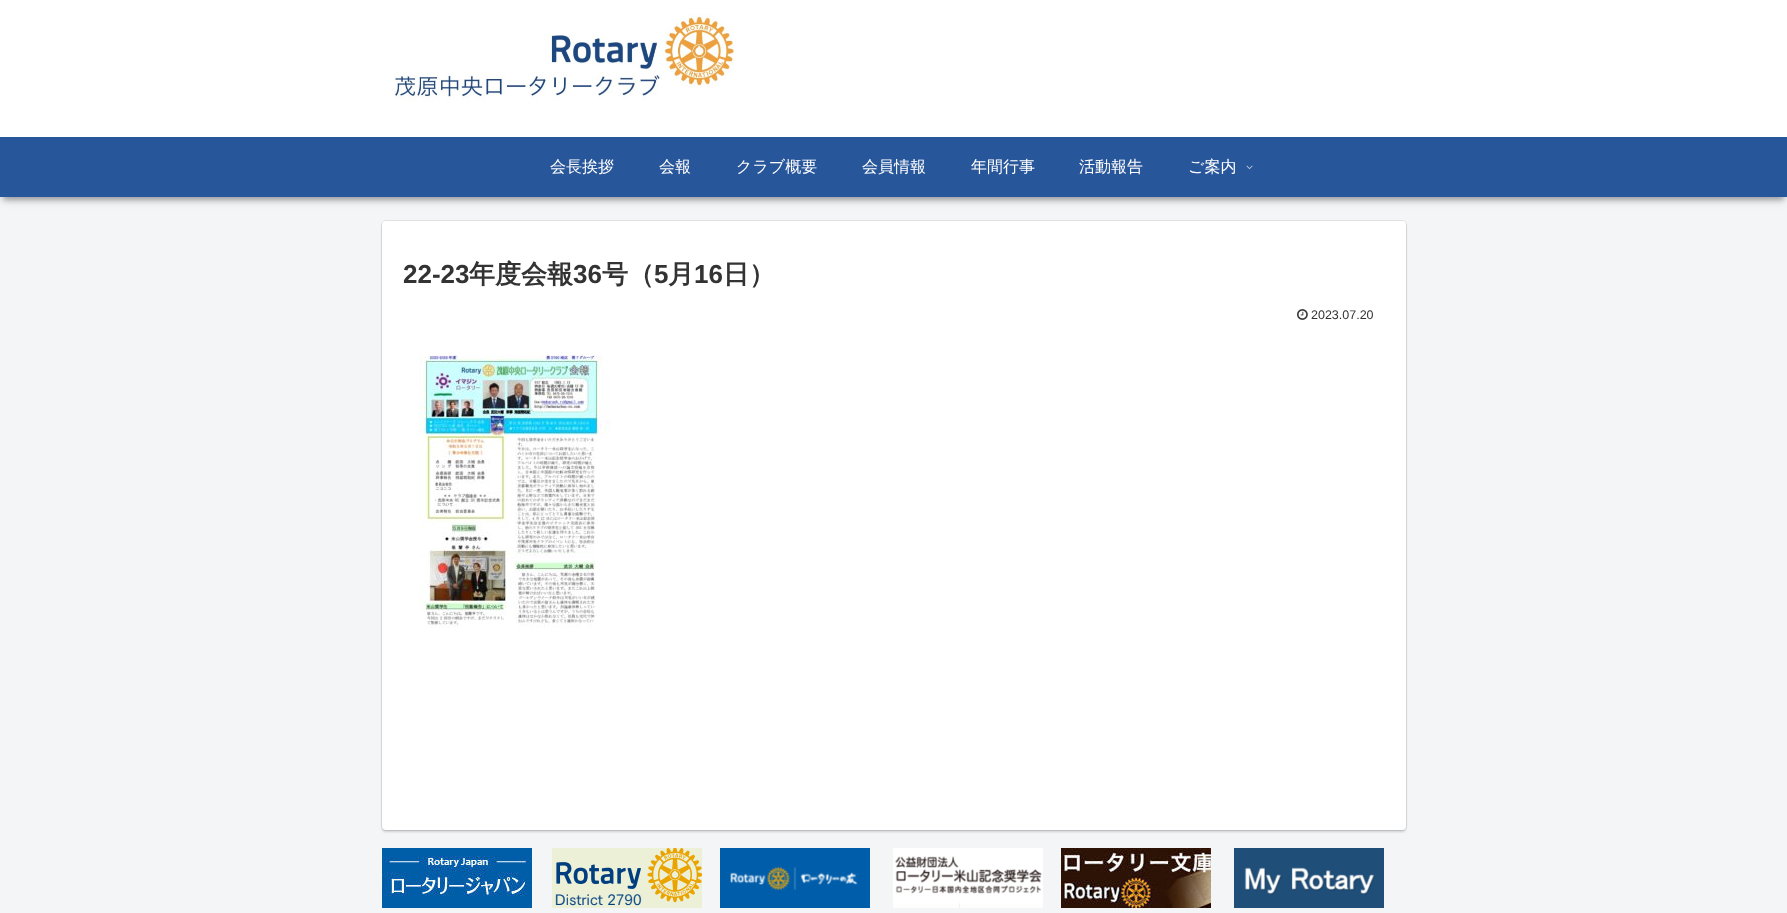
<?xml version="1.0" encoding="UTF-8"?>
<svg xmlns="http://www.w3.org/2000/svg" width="1787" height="913">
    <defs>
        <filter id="blur1" x="-50%" y="-200%" width="200%" height="500%"><feGaussianBlur stdDeviation="5"/></filter>
        <filter id="blur2" x="-50%" y="-200%" width="200%" height="500%"><feGaussianBlur stdDeviation="2.5"/></filter>
        <filter id="blur3" x="-50%" y="-200%" width="200%" height="500%"><feGaussianBlur stdDeviation="1"/></filter>
    </defs>
    <rect width="100%" height="100%" fill="#F4F5F7"/>
    <rect x="3" y="9" width="1781" height="191" fill="#000000" fill-opacity="0.18" filter="url(#blur1)"/>
    <rect x="3" y="9" width="1781" height="191" fill="#000000" fill-opacity="0.24" filter="url(#blur2)"/>
    <rect x="0" y="0" width="1787" height="137" fill="#FFFFFF"/>
    <image x="393" y="13" width="341" height="89" href="img_01.png"/>
    <rect x="0" y="137" width="1787" height="60" fill="#28569A"/>
    <text x="550" y="172" font-family="WenQuanYi Zen Hei" font-size="16" font-weight="500" fill="#FFFFFF">会長挨拶</text>
    <text x="659" y="172" font-family="WenQuanYi Zen Hei" font-size="16" font-weight="500" fill="#FFFFFF">会報</text>
    <text x="736" y="172" font-family="WenQuanYi Zen Hei" font-size="16" font-weight="500" fill="#FFFFFF">クラブ概要</text>
    <text x="862" y="172" font-family="WenQuanYi Zen Hei" font-size="16" font-weight="500" fill="#FFFFFF">会員情報</text>
    <text x="971" y="172" font-family="WenQuanYi Zen Hei" font-size="16" font-weight="500" fill="#FFFFFF">年間行事</text>
    <text x="1079" y="172" font-family="WenQuanYi Zen Hei" font-size="16" font-weight="500" fill="#FFFFFF">活動報告</text>
    <text x="1188" y="172" font-family="WenQuanYi Zen Hei" font-size="16" font-weight="500" fill="#FFFFFF">ご案内</text>
    <image x="1246" y="165" width="7" height="5" href="img_02.png"/>
    <rect x="381.5" y="220.5" width="1025" height="610" rx="4.5" fill="none" stroke="#E0E1E3"/>
    <rect x="382" y="223" width="1024" height="609" rx="4" fill="#000000" fill-opacity="0.16" filter="url(#blur3)"/>
    <rect x="382" y="221" width="1024" height="609" rx="4" fill="#FFFFFF"/>
    <text x="403" y="283" font-family="Liberation Sans" font-size="26" font-weight="700" fill="#333333">22-23</text>
    <text x="469" y="283" font-family="WenQuanYi Zen Hei" font-size="26" font-weight="700" fill="#333333">年度会報</text>
    <text x="573" y="283" font-family="Liberation Sans" font-size="26" font-weight="700" fill="#333333">36</text>
    <text x="602" y="283" font-family="WenQuanYi Zen Hei" font-size="26" font-weight="700" fill="#333333">号（</text>
    <text x="654" y="283" font-family="Liberation Sans" font-size="26" font-weight="700" fill="#333333">5</text>
    <text x="668" y="283" font-family="WenQuanYi Zen Hei" font-size="26" font-weight="700" fill="#333333">月</text>
    <text x="694" y="283" font-family="Liberation Sans" font-size="26" font-weight="700" fill="#333333">16</text>
    <text x="723" y="283" font-family="WenQuanYi Zen Hei" font-size="26" font-weight="700" fill="#333333">日）</text>
    <image x="1297" y="309" width="11" height="11" href="img_03.png"/>
    <text x="1311" y="319" font-family="Liberation Sans" font-size="12.5" fill="#333333">2023.07.20</text>
    <image x="419" y="354" width="192" height="274" href="img_04.png"/>
    <image x="382" y="848" width="150" height="60" href="img_05.png"/>
    <image x="552" y="848" width="150" height="60" href="img_06.png"/>
    <image x="720" y="848" width="150" height="60" href="img_07.png"/>
    <image x="893" y="848" width="150" height="60" href="img_08.png"/>
    <image x="1061" y="848" width="150" height="60" href="img_09.png"/>
    <image x="1234" y="848" width="150" height="60" href="img_10.png"/>
</svg>
